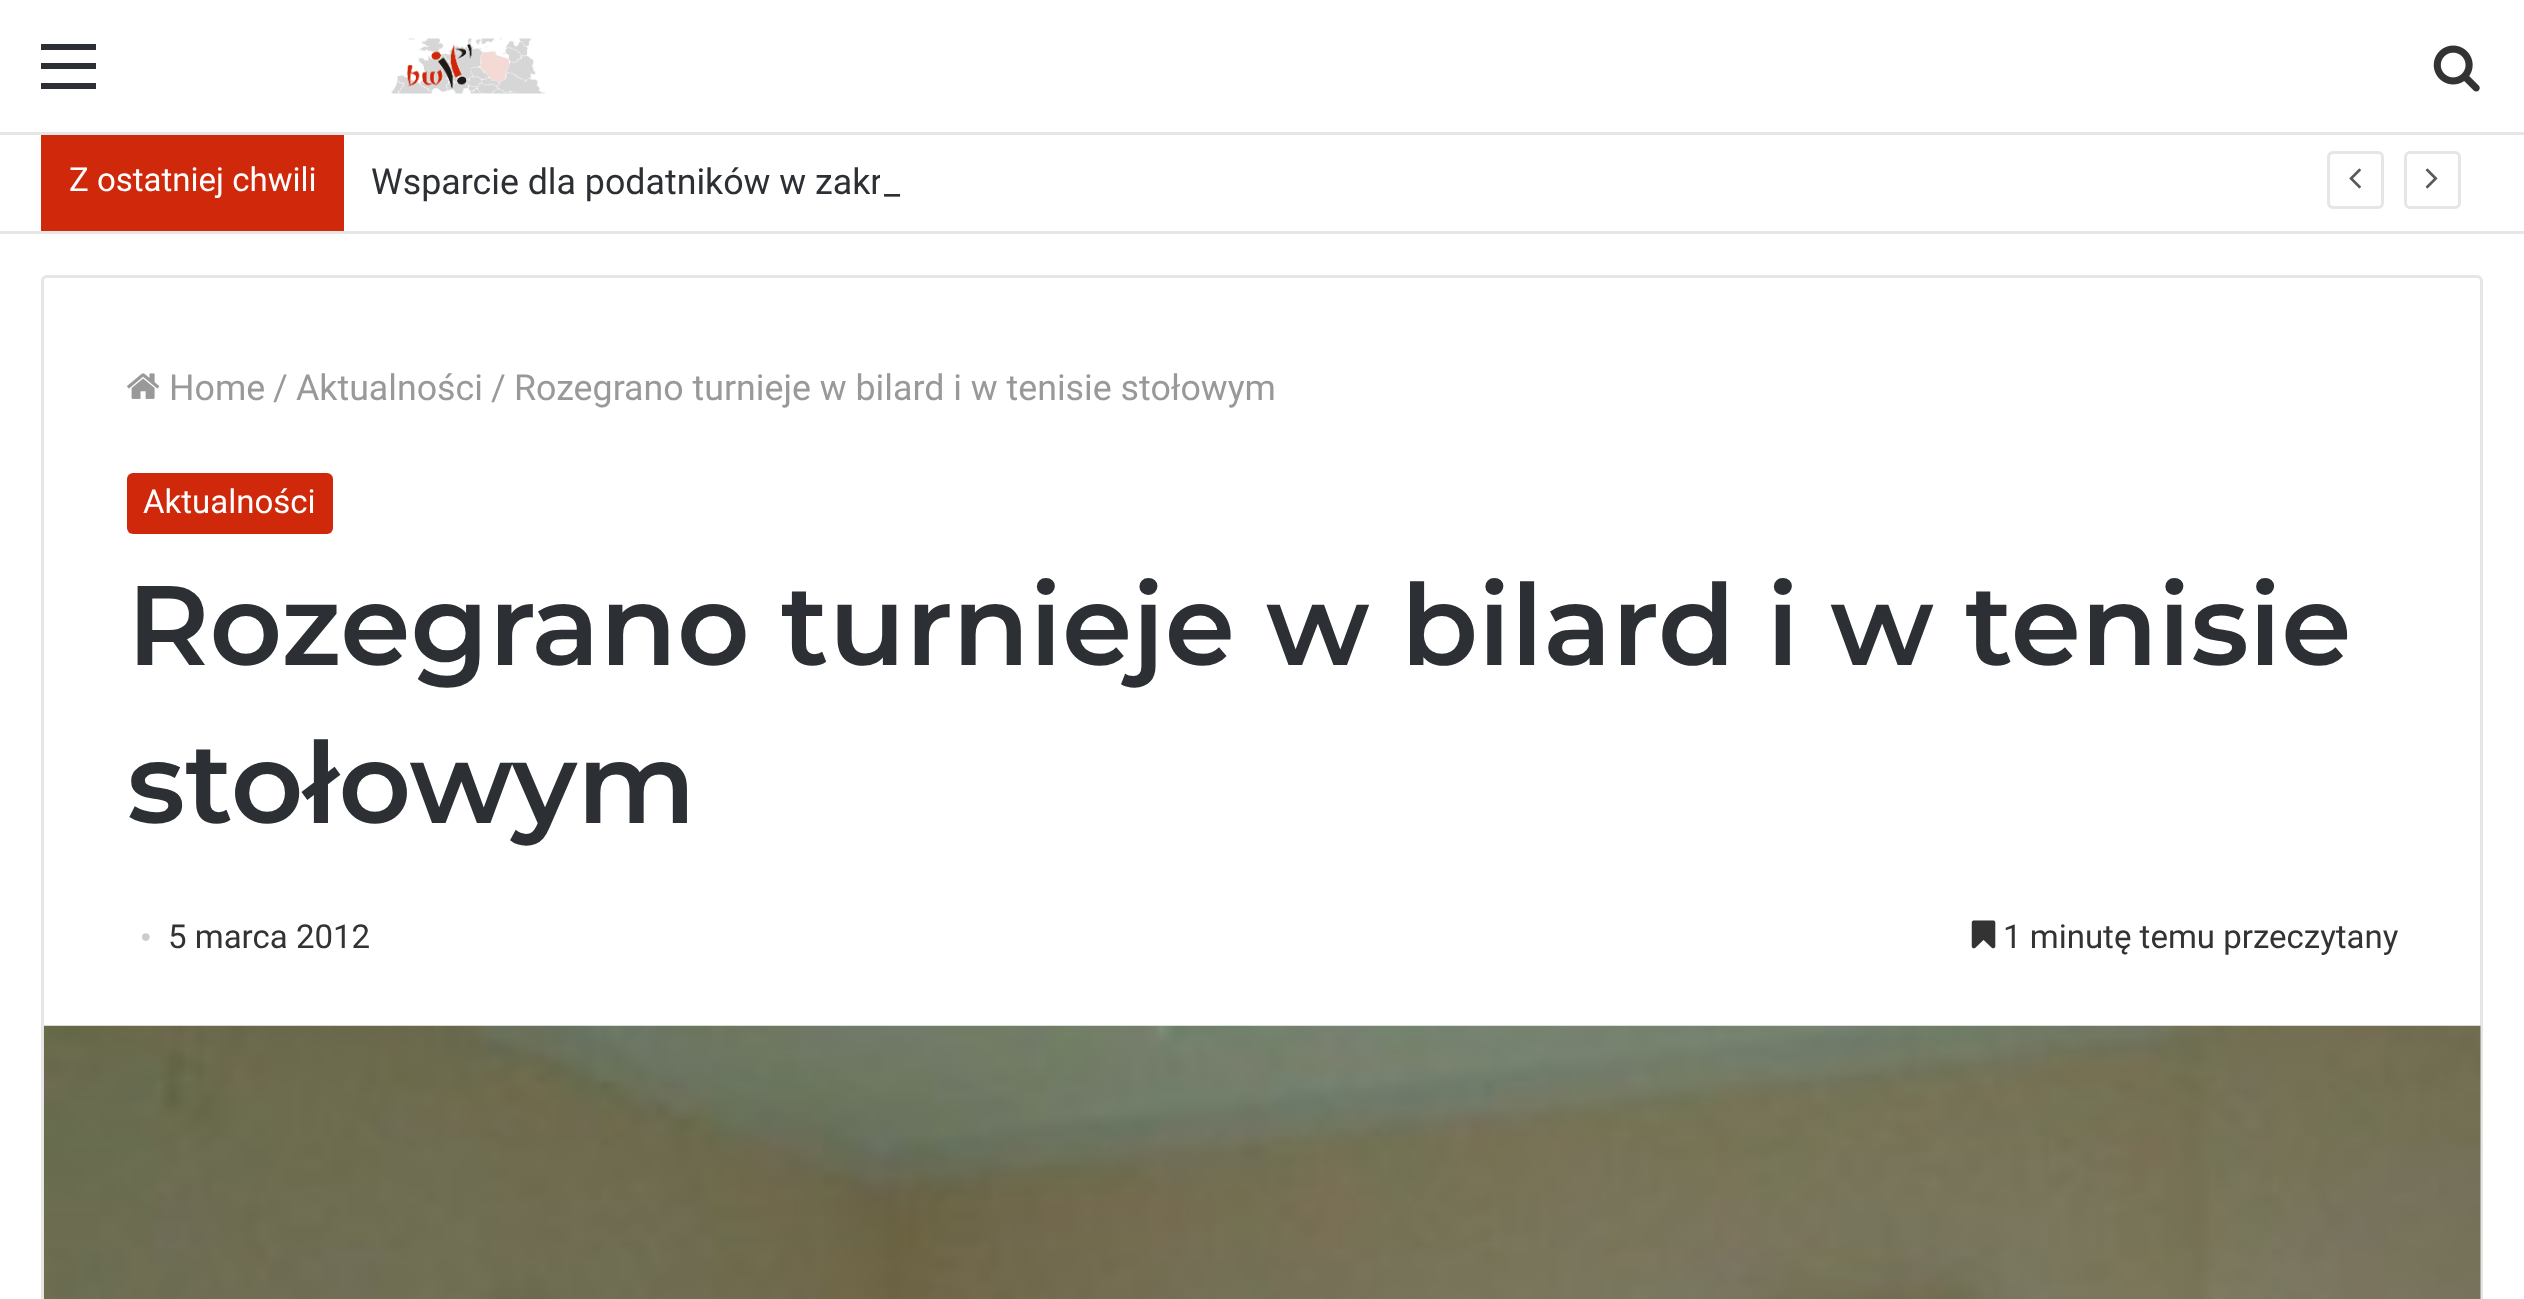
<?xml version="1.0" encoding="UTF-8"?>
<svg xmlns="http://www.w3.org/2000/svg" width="2524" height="1299">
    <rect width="100%" height="100%" fill="#FFFFFF"/>
    <rect x="41" y="63" width="55" height="6" fill="#2C2F34"/>
    <rect x="41" y="44" width="55" height="6" fill="#2C2F34"/>
    <rect x="41" y="83" width="55" height="6" fill="#2C2F34"/>
    <image x="391" y="38" width="154" height="56" href="img_01.png"/>
    <image x="2433" y="45" width="47" height="47" href="img_02.png"/>
    <rect x="0" y="132" width="2524" height="3" fill="#E6E6E6"/>
    <rect x="0" y="231" width="2524" height="3" fill="#E6E6E6"/>
    <rect x="41" y="135" width="303" height="96" fill="#D0280B"/>
    <text x="69" y="191" font-family="Roboto" font-size="33" fill="#FFFFFF">Z ostatniej chwili</text>
    <text x="371" y="194" font-family="Roboto" font-size="35.75" fill="#2C2F34">Wsparcie dla podatników w zakr</text>
    <rect x="880" y="174" width="3" height="4" fill="#FFFFFF"/>
    <text x="884" y="194" font-family="Roboto" font-size="35.75" fill="#2C2F34">_</text>
    <rect x="2328.5" y="152.5" width="54" height="55" rx="4.5" fill="none" stroke="#E6E6E6" stroke-width="3"/>
    <image x="2349" y="168" width="12" height="21" href="img_03.png"/>
    <rect x="2405.5" y="152.5" width="54" height="55" rx="4.5" fill="none" stroke="#E6E6E6" stroke-width="3"/>
    <image x="2425" y="168" width="13" height="21" href="img_04.png"/>
    <rect x="42.5" y="276.5" width="2439" height="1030" rx="4.5" fill="none" stroke="#E6E6E6" stroke-width="3"/>
    <image x="127" y="373" width="33" height="26" href="img_05.png"/>
    <text x="169" y="400" font-family="Roboto" font-size="35.75" fill="#999999">Home</text>
    <text x="273" y="400" font-family="Roboto" font-size="35.75" fill="#999999">/</text>
    <text x="296" y="400" font-family="Roboto" font-size="35.75" fill="#999999">Aktualności</text>
    <text x="491" y="400" font-family="Roboto" font-size="35.75" fill="#999999">/</text>
    <text x="514" y="400" font-family="Roboto" font-size="35.75" fill="#999999">Rozegrano turnieje w bilard i w tenisie stołowym</text>
    <rect x="127" y="473" width="206" height="61" rx="6" fill="#D0280B"/>
    <text x="143" y="513" font-family="Roboto" font-size="33" fill="#FFFFFF">Aktualności</text>
    <text font-family="Montserrat" font-size="112.75" font-weight="600" fill="#2C2F34">
        <tspan x="127" y="665">Rozegrano turnieje w bilard i w tenisie</tspan>
        <tspan x="127" y="823">stołowym</tspan>
    </text>
    <text x="140" y="948" font-family="Liberation Serif" font-size="33" fill="#CCCCCC">•</text>
    <text x="168" y="948" font-family="Roboto" font-size="33" fill="#333333">5 marca 2012</text>
    <image x="1971" y="920" width="25" height="29" href="img_06.png"/>
    <text x="2003" y="948" font-family="Roboto" font-size="33" fill="#333333">1 minutę temu przeczytany</text>
    <image x="44" y="1025" width="2437" height="274" href="img_07.png"/>
</svg>
